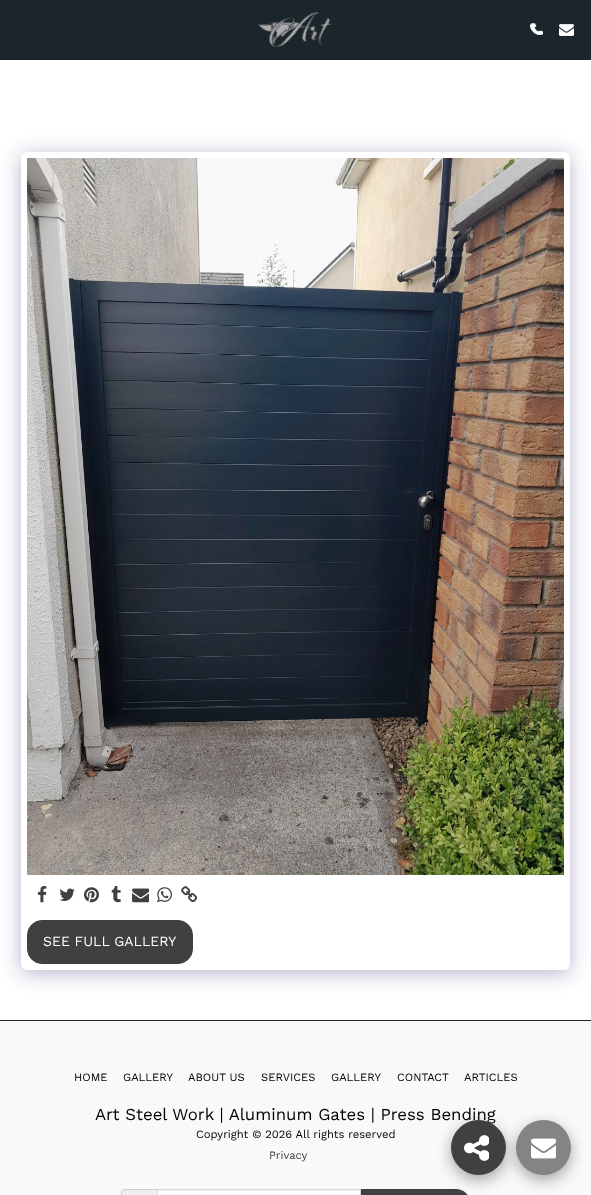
<?xml version="1.0" encoding="UTF-8"?>
<svg xmlns="http://www.w3.org/2000/svg" width="591" height="1195">
    <defs>
        <filter id="blur1" x="-50%" y="-200%" width="200%" height="500%"><feGaussianBlur stdDeviation="10"/></filter>
        <filter id="blur2" x="-50%" y="-200%" width="200%" height="500%"><feGaussianBlur stdDeviation="7.5"/></filter>
    </defs>
    <rect width="100%" height="100%" fill="#F9F9F9"/>
    <rect x="0" y="0" width="591" height="60" fill="#1B262C"/>
    <image x="258" y="12" width="75" height="35" href="img_01.png"/>
    <image x="532" y="23" width="11" height="12" href="img_02.png"/>
    <image x="530" y="23" width="11" height="12" href="img_03.png"/>
    <image x="559" y="24" width="15" height="12" href="img_04.png"/>
    <rect x="0" y="60" width="591" height="960" fill="#FFFFFF"/>
    <rect x="21" y="155" width="549" height="818" rx="6" fill="#4D3F7A" fill-opacity="0.4" filter="url(#blur1)"/>
    <rect x="21" y="152" width="549" height="818" rx="6" fill="#FFFFFF"/>
    <image x="27" y="158" width="537" height="717" href="img_05.png"/>
    <image x="37" y="886" width="10" height="17" href="img_06.png"/>
    <image x="59" y="888" width="16" height="13" href="img_07.png"/>
    <image x="84" y="887" width="15" height="16" href="img_08.png"/>
    <image x="111" y="886" width="10" height="17" href="img_09.png"/>
    <image x="132" y="888" width="17" height="15" href="img_10.png"/>
    <image x="157" y="887" width="15" height="16" href="img_11.png"/>
    <image x="181" y="886" width="17" height="17" href="img_12.png"/>
    <rect x="27.5" y="920.5" width="165" height="43" rx="14.5" fill="#404040" stroke="#404040"/>
    <text x="43" y="946" font-family="Work Sans" font-size="14" fill="#FFFFFF">SEE FULL GALLERY</text>
    <rect x="0" y="1020" width="591" height="1" fill="#1B262C"/>
    <text x="74" y="1081" font-family="Work Sans" font-size="11.25" fill="#000000">HOME</text>
    <text x="123" y="1081" font-family="Work Sans" font-size="11.25" fill="#000000">GALLERY</text>
    <text x="188" y="1081" font-family="Work Sans" font-size="11.25" fill="#000000">ABOUT US</text>
    <text x="261" y="1081" font-family="Work Sans" font-size="11.25" fill="#000000">SERVICES</text>
    <text x="331" y="1081" font-family="Work Sans" font-size="11.25" fill="#000000">GALLERY</text>
    <text x="397" y="1081" font-family="Work Sans" font-size="11.25" fill="#000000">CONTACT</text>
    <text x="464" y="1081" font-family="Work Sans" font-size="11.25" fill="#000000">ARTICLES</text>
    <text x="95" y="1120" font-family="Work Sans" font-size="16.8" fill="#000000">Art Steel Work | Aluminum Gates | Press Bending</text>
    <text x="196" y="1138" font-family="Work Sans" font-size="11.25" fill="#000000">Copyright © 2026 All rights reserved</text>
    <text x="269" y="1159" font-family="Work Sans" font-size="11.25" fill="#404040">Privacy</text>
    <path d="M 125 1190 H 157 V 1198 H 125 C 123.5 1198 122 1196.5 122 1195 V 1193 C 122 1191.5 123.5 1190 125 1190 Z" fill="#EEEEEE"/>
    <path d="M 125 1189 H 157 V 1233 H 125 C 123 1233 121 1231 121 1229 V 1193 C 121 1191 123 1189 125 1189 Z M 125 1190 H 157 V 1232 H 125 C 123 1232 122 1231 122 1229 V 1193 C 122 1191 123 1190 125 1190 Z" fill="#CCCCCC" fill-rule="evenodd"/>
    <path d="M 360.5 1189.5 H 456 C 464 1189.5 470.5 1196 470.5 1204 V 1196 C 470.5 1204 464 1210.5 456 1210.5 H 360.5 Z" fill="#404040" stroke="#404040"/>
    <rect x="157" y="1191" width="204" height="4" fill="#FFFFFF"/>
    <rect x="158" y="1190" width="202" height="1" fill="#ECECEC"/>
    <rect x="157.5" y="1189.5" width="203" height="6" fill="none" stroke="#D4D7E5"/>
    <rect x="516" y="1125" width="55" height="55" rx="27.5" fill="#000000" fill-opacity="0.35" filter="url(#blur2)"/>
    <circle cx="543.5" cy="1147.5" r="27.5" fill="#848484"/>
    <rect x="451" y="1125" width="55" height="55" rx="27.5" fill="#000000" fill-opacity="0.35" filter="url(#blur2)"/>
    <circle cx="478.5" cy="1147.5" r="27" fill="#404040" stroke="#404040"/>
    <image x="464" y="1135" width="25" height="26" href="img_13.png"/>
    <image x="531" y="1138" width="25" height="21" href="img_14.png"/>
</svg>
